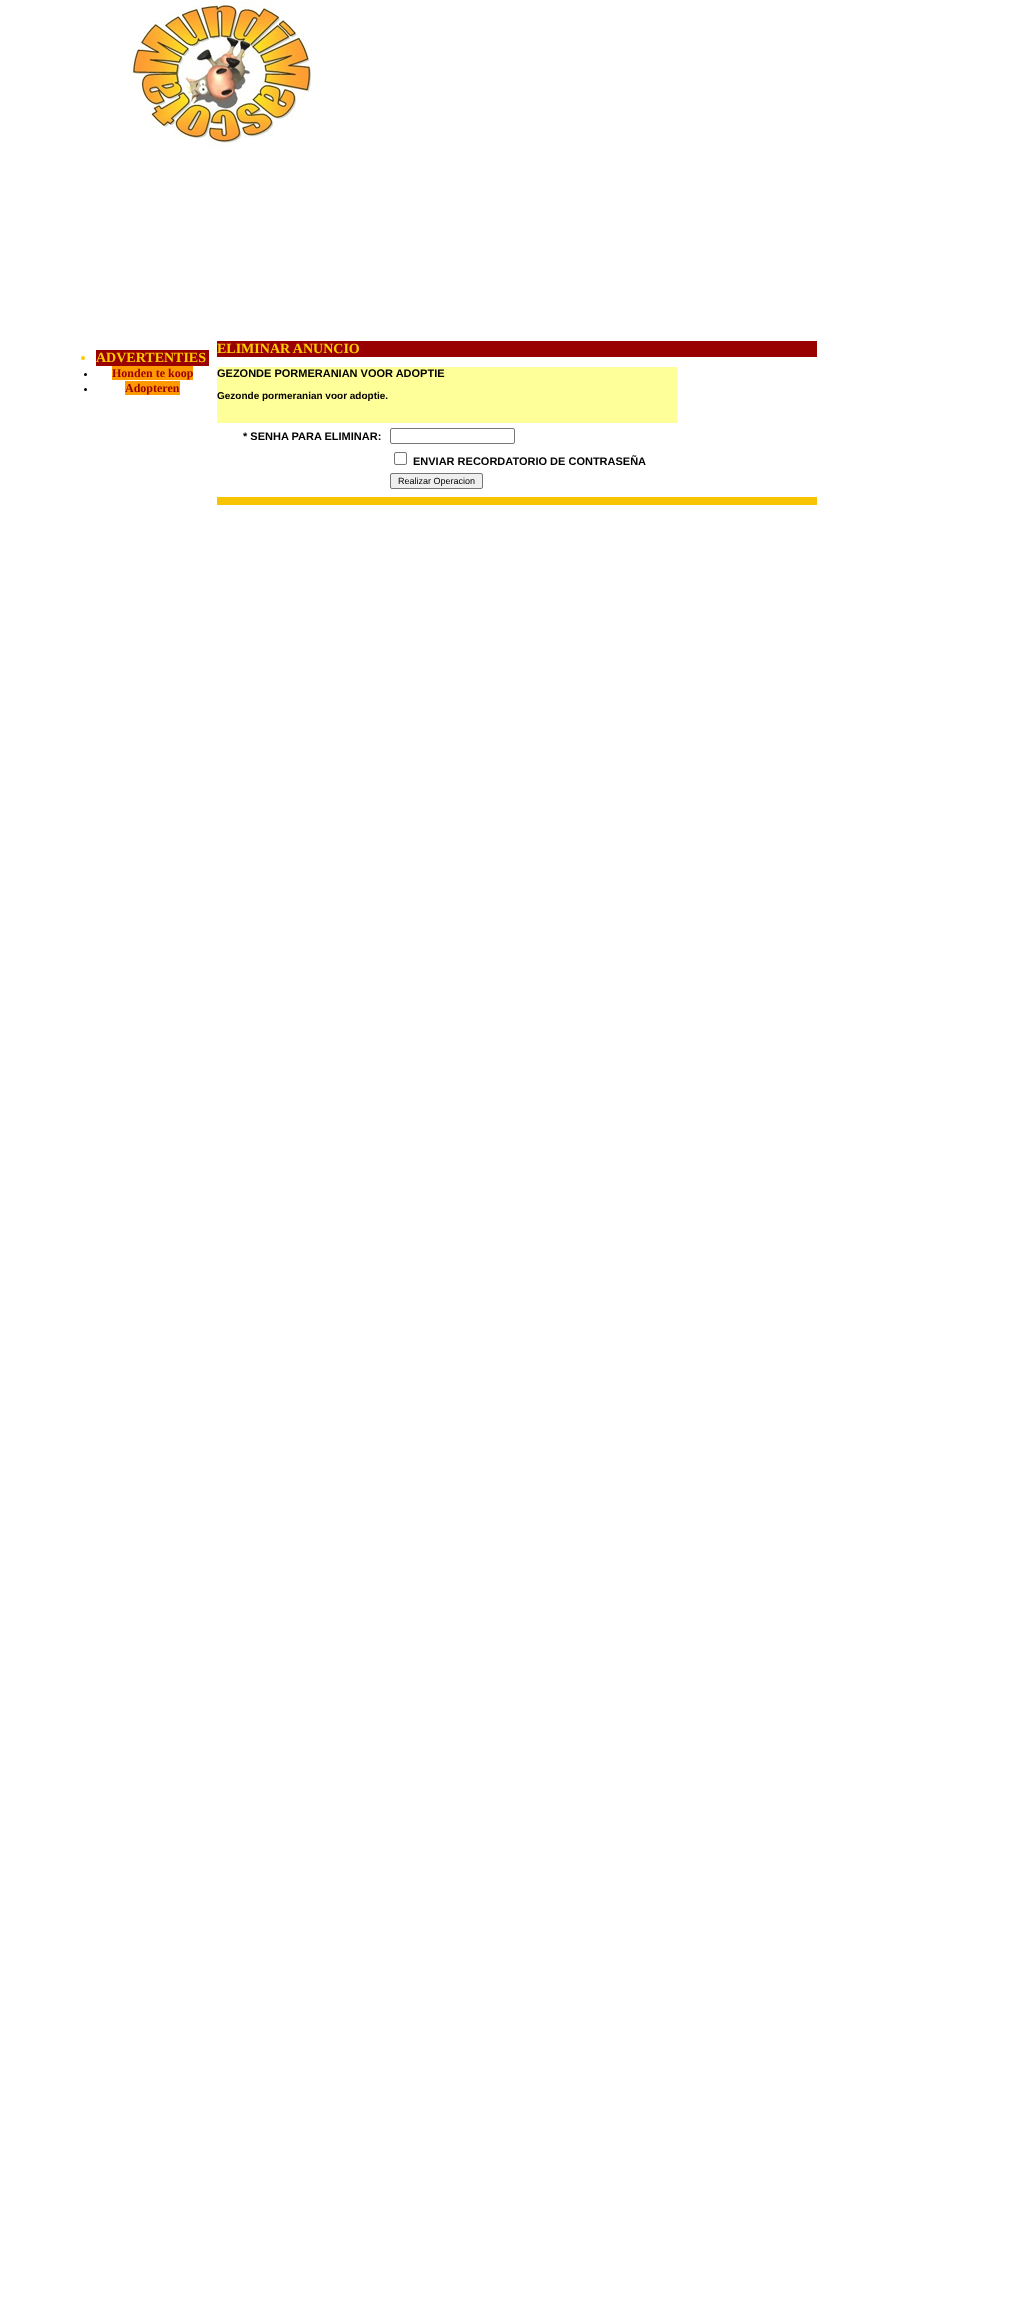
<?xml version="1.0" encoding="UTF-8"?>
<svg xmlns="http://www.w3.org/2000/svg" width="1012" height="2316">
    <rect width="100%" height="100%" fill="#FFFFFF"/>
    <image x="130" y="1" width="184" height="147" href="img_01.png"/>
    <rect x="96" y="350" width="113" height="16" fill="#990000"/>
    <circle cx="83" cy="358" r="2" fill="#FFCC00"/>
    <text x="96" y="362" font-family="Liberation Serif" font-size="14" font-weight="700" fill="#FFCC00">ADVERTENTIES</text>
    <circle cx="85.5" cy="374.5" r="1.5" fill="#000000"/>
    <rect x="112" y="366" width="81" height="14" fill="#FF9900"/>
    <text x="112" y="377" font-family="Liberation Serif" font-size="12" font-weight="700" fill="#990000">Honden te koop</text>
    <circle cx="85.5" cy="389.5" r="1.5" fill="#000000"/>
    <rect x="125" y="381" width="55" height="14" fill="#FF9900"/>
    <text x="125" y="392" font-family="Liberation Serif" font-size="12" font-weight="700" fill="#990000">Adopteren</text>
    <rect x="217" y="341" width="600" height="16" fill="#990000"/>
    <text x="217" y="353" font-family="Liberation Serif" font-size="14" font-weight="700" fill="#FFCC00">ELIMINAR ANUNCIO</text>
    <rect x="217" y="367" width="460" height="56" fill="#FFFF99"/>
    <text x="217" y="377" font-family="Liberation Sans" font-size="11" font-weight="700" fill="#000000">GEZONDE PORMERANIAN VOOR ADOPTIE</text>
    <text x="217" y="399" font-family="Liberation Sans" font-size="10" font-weight="700" fill="#000000">Gezonde pormeranian voor adoptie.</text>
    <text x="243" y="440" font-family="Liberation Sans" font-size="11" font-weight="700" fill="#000000">* SENHA PARA ELIMINAR:</text>
    <rect x="390.5" y="428.5" width="124" height="15" rx="1.5" fill="none" stroke="#767676"/>
    <rect x="394.5" y="452.5" width="12" height="12" rx="1.5" fill="none" stroke="#767676"/>
    <text x="413" y="465" font-family="Liberation Sans" font-size="11" font-weight="700" fill="#000000">ENVIAR RECORDATORIO DE CONTRASEÑA</text>
    <rect x="390.5" y="473.5" width="92" height="15" rx="1.5" fill="#EFEFEF" stroke="#767676"/>
    <text x="398" y="484" font-family="Liberation Sans" font-size="9" fill="#000000">Realizar Operacion</text>
    <rect x="217" y="497" width="600" height="8" fill="#F8C301"/>
</svg>
